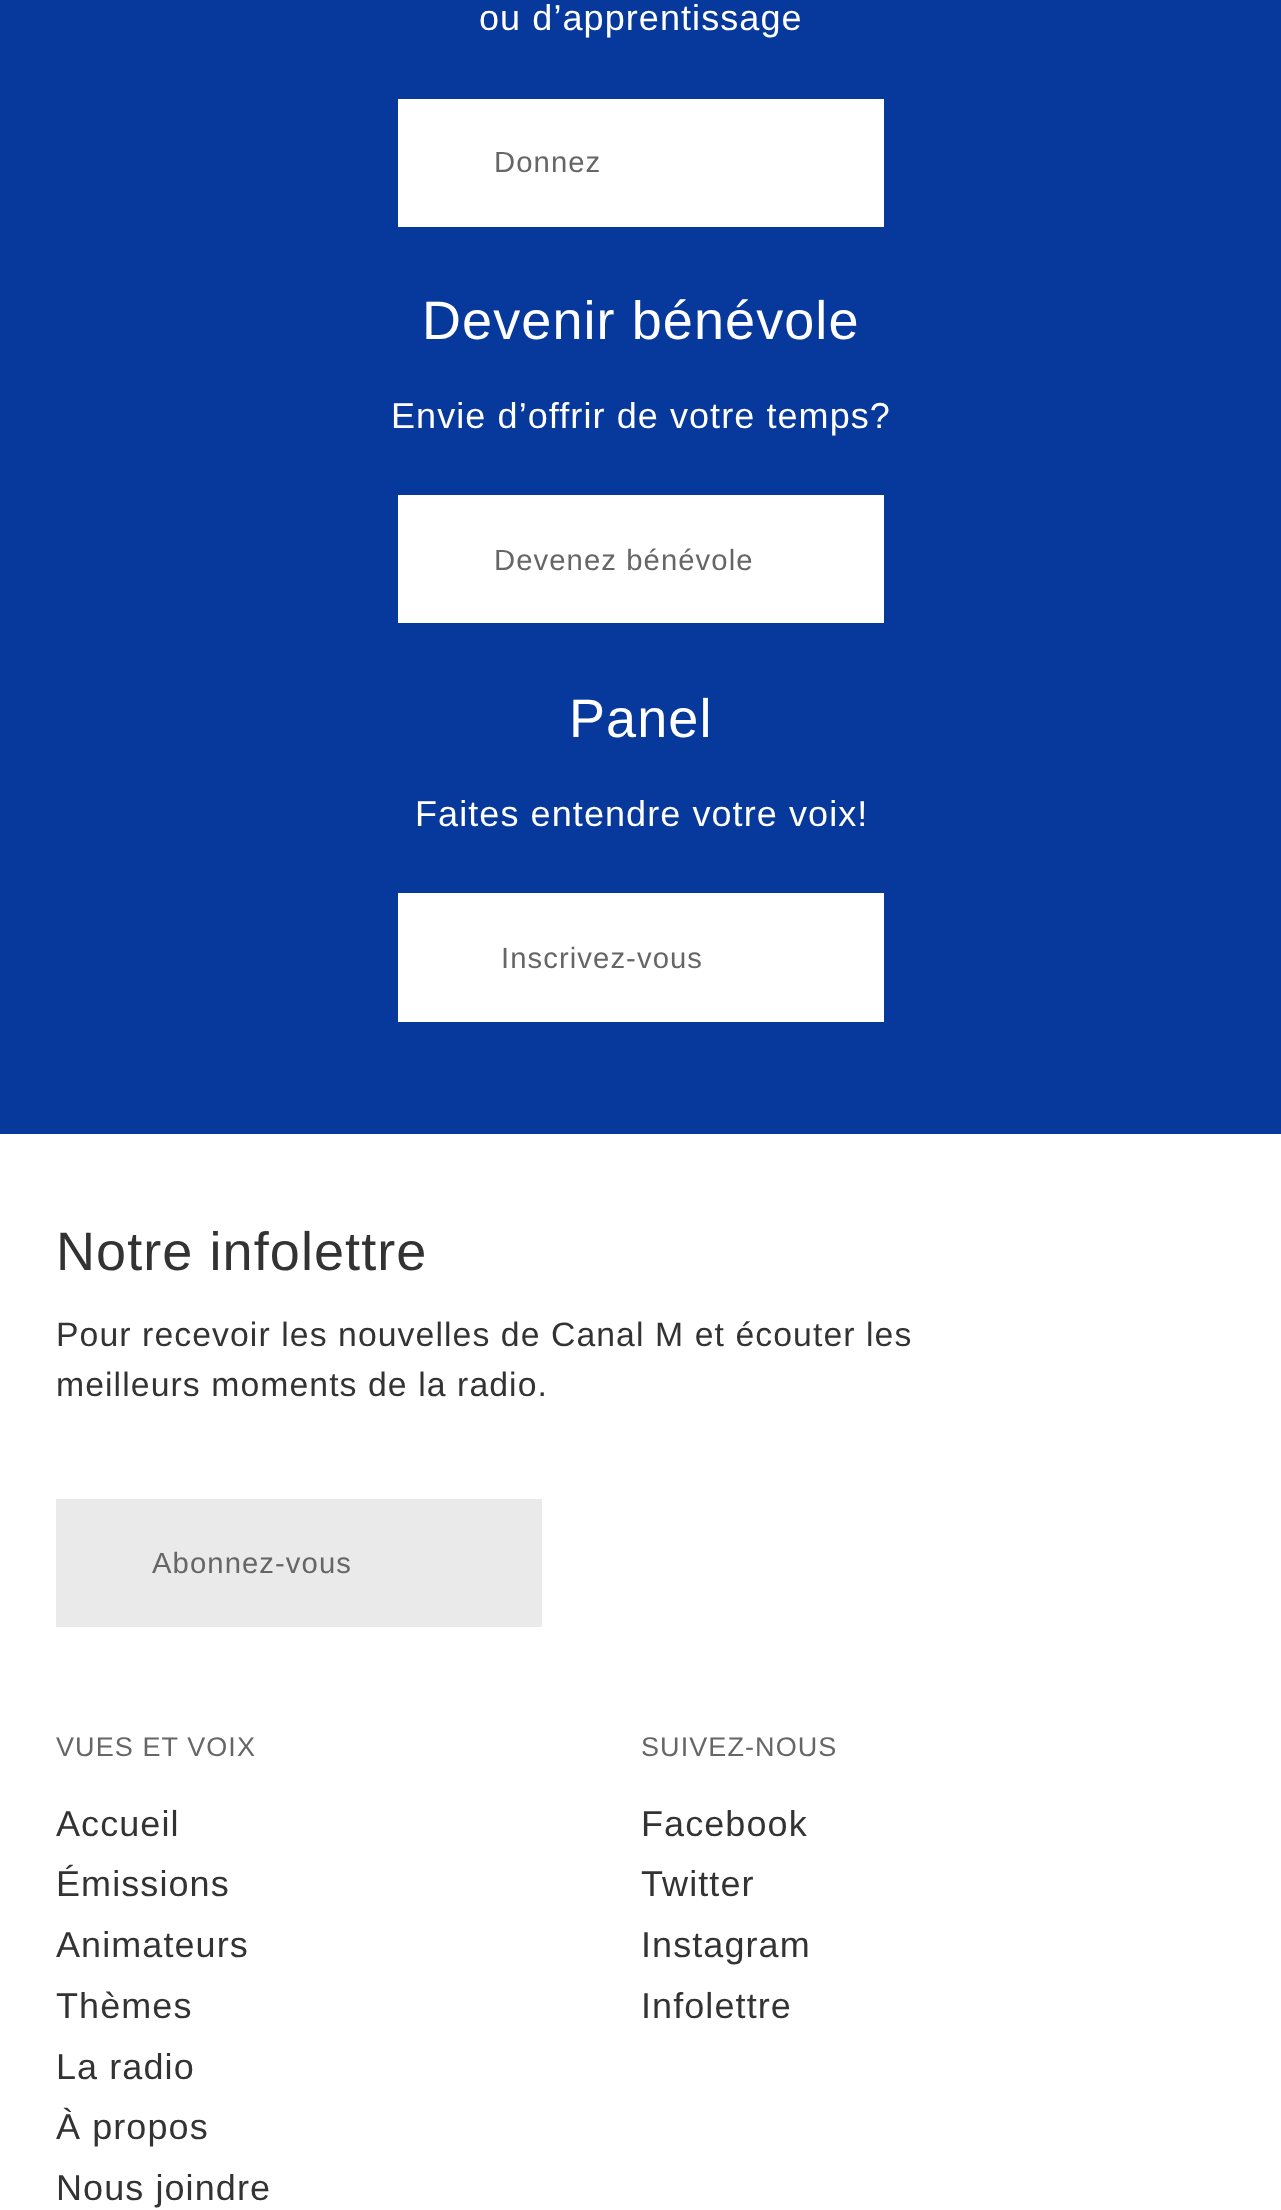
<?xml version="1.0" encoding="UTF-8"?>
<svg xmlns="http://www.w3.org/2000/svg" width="1281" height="2210">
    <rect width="100%" height="100%" fill="#FFFFFF"/>
    <rect x="0" y="0" width="1281" height="1134" fill="#07389B"/>
    <text x="479" y="30" font-family="Liberation Sans" font-size="36" letter-spacing="1.08" fill="#FFFFFF">ou d’apprentissage</text>
    <rect x="398" y="99" width="486" height="128" fill="#FFFFFF"/>
    <text x="494" y="172" font-family="Liberation Sans" font-size="29.25" letter-spacing="1.08" fill="#666666">Donnez</text>
    <text x="422" y="339" font-family="Liberation Sans" font-size="54" letter-spacing="1.08" fill="#FFFFFF">Devenir bénévole</text>
    <text x="391" y="428" font-family="Liberation Sans" font-size="36" letter-spacing="1.08" fill="#FFFFFF">Envie d’offrir de votre temps?</text>
    <rect x="398" y="495" width="486" height="128" fill="#FFFFFF"/>
    <text x="494" y="570" font-family="Liberation Sans" font-size="29.25" letter-spacing="1.08" fill="#666666">Devenez bénévole</text>
    <text x="569" y="737" font-family="Liberation Sans" font-size="54" letter-spacing="1.08" fill="#FFFFFF">Panel</text>
    <text x="415" y="826" font-family="Liberation Sans" font-size="36" letter-spacing="1.08" fill="#FFFFFF">Faites entendre votre voix!</text>
    <rect x="398" y="893" width="486" height="129" fill="#FFFFFF"/>
    <text x="501" y="968" font-family="Liberation Sans" font-size="29.25" letter-spacing="1.08" fill="#666666">Inscrivez-vous</text>
    <text x="56" y="1270" font-family="Liberation Sans" font-size="54" letter-spacing="1.08" fill="#333333">Notre infolettre</text>
    <text font-family="Liberation Sans" font-size="33.75" letter-spacing="1.08" fill="#333333">
        <tspan x="56" y="1346">Pour recevoir les nouvelles de Canal M et écouter les</tspan>
        <tspan x="56" y="1396">meilleurs moments de la radio.</tspan>
    </text>
    <rect x="56" y="1499" width="486" height="128" fill="#EAEAEA"/>
    <text x="152" y="1573" font-family="Liberation Sans" font-size="29.25" letter-spacing="1.08" fill="#666666">Abonnez-vous</text>
    <text x="56" y="1756" font-family="Liberation Sans" font-size="27" letter-spacing="1.08" fill="#666666">VUES ET VOIX</text>
    <text font-family="Liberation Sans" font-size="36" letter-spacing="1.08" fill="#333333">
        <tspan x="56" y="1836">Accueil</tspan>
        <tspan x="56" y="1896">Émissions</tspan>
        <tspan x="56" y="1957">Animateurs</tspan>
        <tspan x="56" y="2018">Thèmes</tspan>
        <tspan x="56" y="2079">La radio</tspan>
        <tspan x="56" y="2139">À propos</tspan>
        <tspan x="56" y="2200">Nous joindre</tspan>
    </text>
    <text x="641" y="1756" font-family="Liberation Sans" font-size="27" letter-spacing="1.08" fill="#666666">SUIVEZ-NOUS</text>
    <text font-family="Liberation Sans" font-size="36" letter-spacing="1.08" fill="#333333">
        <tspan x="641" y="1836">Facebook</tspan>
        <tspan x="641" y="1896">Twitter</tspan>
        <tspan x="641" y="1957">Instagram</tspan>
        <tspan x="641" y="2018">Infolettre</tspan>
    </text>
</svg>
